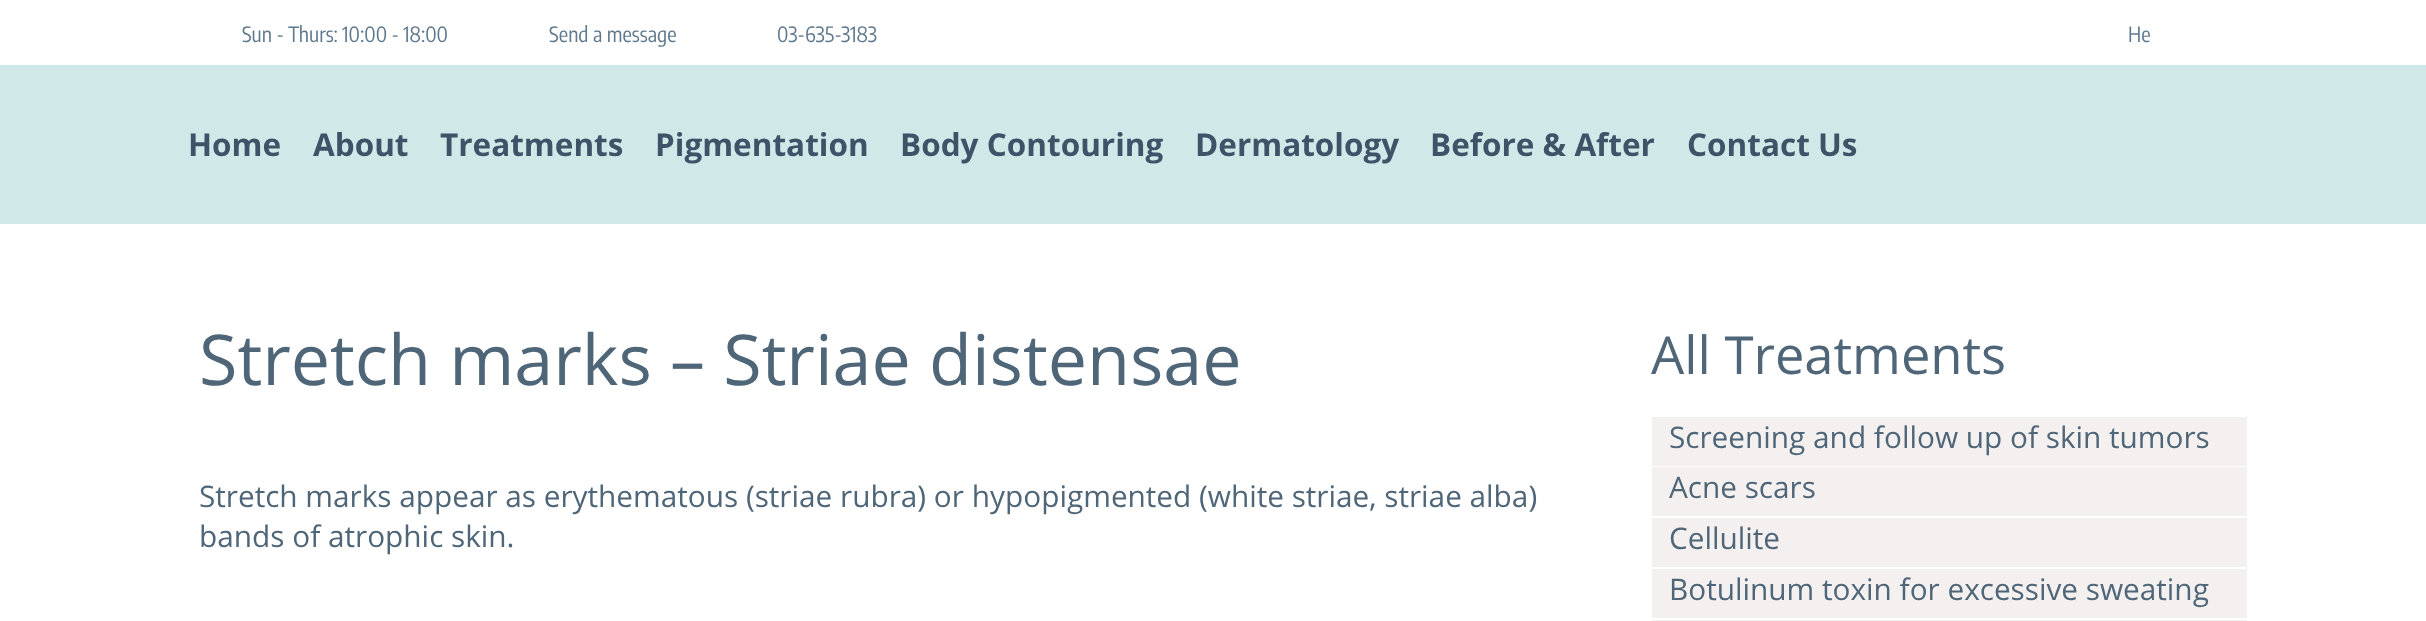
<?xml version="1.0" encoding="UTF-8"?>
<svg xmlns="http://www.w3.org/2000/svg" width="2426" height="621">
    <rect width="100%" height="100%" fill="#FFFFFF"/>
    <text x="242" y="42" font-family="Encode Sans Condensed" font-size="21" fill="#5E788E">Sun - Thurs: 10:00 - 18:00</text>
    <text x="549" y="42" font-family="Encode Sans Condensed" font-size="21" fill="#5E788E">Send a message</text>
    <text x="777" y="42" font-family="Encode Sans Condensed" font-size="21" fill="#5E788E">03-635-3183</text>
    <text x="2128" y="42" font-family="Encode Sans Condensed" font-size="21" fill="#5E788E">He</text>
    <rect x="0" y="65" width="2426" height="159" fill="#D1E8E8"/>
    <text x="188" y="156" font-family="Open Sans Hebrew" font-size="31.5" font-weight="700" fill="#3C5368">Home</text>
    <text x="313" y="156" font-family="Open Sans Hebrew" font-size="31.5" font-weight="700" fill="#3C5368">About</text>
    <text x="440" y="156" font-family="Open Sans Hebrew" font-size="31.5" font-weight="700" fill="#3C5368">Treatments</text>
    <text x="655" y="156" font-family="Open Sans Hebrew" font-size="31.5" font-weight="700" fill="#3C5368">Pigmentation</text>
    <text x="900" y="156" font-family="Open Sans Hebrew" font-size="31.5" font-weight="700" fill="#3C5368">Body Contouring</text>
    <text x="1195" y="156" font-family="Open Sans Hebrew" font-size="31.5" font-weight="700" fill="#3C5368">Dermatology</text>
    <text x="1430" y="156" font-family="Open Sans Hebrew" font-size="31.5" font-weight="700" fill="#3C5368">Before &amp; After</text>
    <text x="1687" y="156" font-family="Open Sans Hebrew" font-size="31.5" font-weight="700" fill="#3C5368">Contact Us</text>
    <text x="199" y="385" font-family="Open Sans Hebrew" font-size="70" fill="#4F6679">Stretch marks – Striae distensae</text>
    <text font-family="Open Sans Hebrew" font-size="29.75" fill="#4F6679">
        <tspan x="199" y="507">Stretch marks appear as erythematous (striae rubra) or hypopigmented (white striae, striae alba)</tspan>
        <tspan x="199" y="547">bands of atrophic skin.</tspan>
    </text>
    <text x="1651" y="374" font-family="Open Sans Hebrew" font-size="52.5" fill="#4F6679">All Treatments</text>
    <rect x="1652" y="417" width="595" height="49" fill="#F4F0EF"/>
    <text x="1669" y="448" font-family="Open Sans Hebrew" font-size="29.75" fill="#4F6679">Screening and follow up of skin tumors</text>
    <rect x="1652" y="467" width="595" height="49" fill="#F4F0EF"/>
    <text x="1669" y="498" font-family="Open Sans Hebrew" font-size="29.75" fill="#4F6679">Acne scars</text>
    <rect x="1652" y="518" width="595" height="49" fill="#F4F0EF"/>
    <text x="1669" y="549" font-family="Open Sans Hebrew" font-size="29.75" fill="#4F6679">Cellulite</text>
    <rect x="1652" y="569" width="595" height="49" fill="#F4F0EF"/>
    <text x="1669" y="600" font-family="Open Sans Hebrew" font-size="29.75" fill="#4F6679">Botulinum toxin for excessive sweating</text>
    <rect x="1652" y="620" width="595" height="1" fill="#F4F0EF"/>
</svg>
